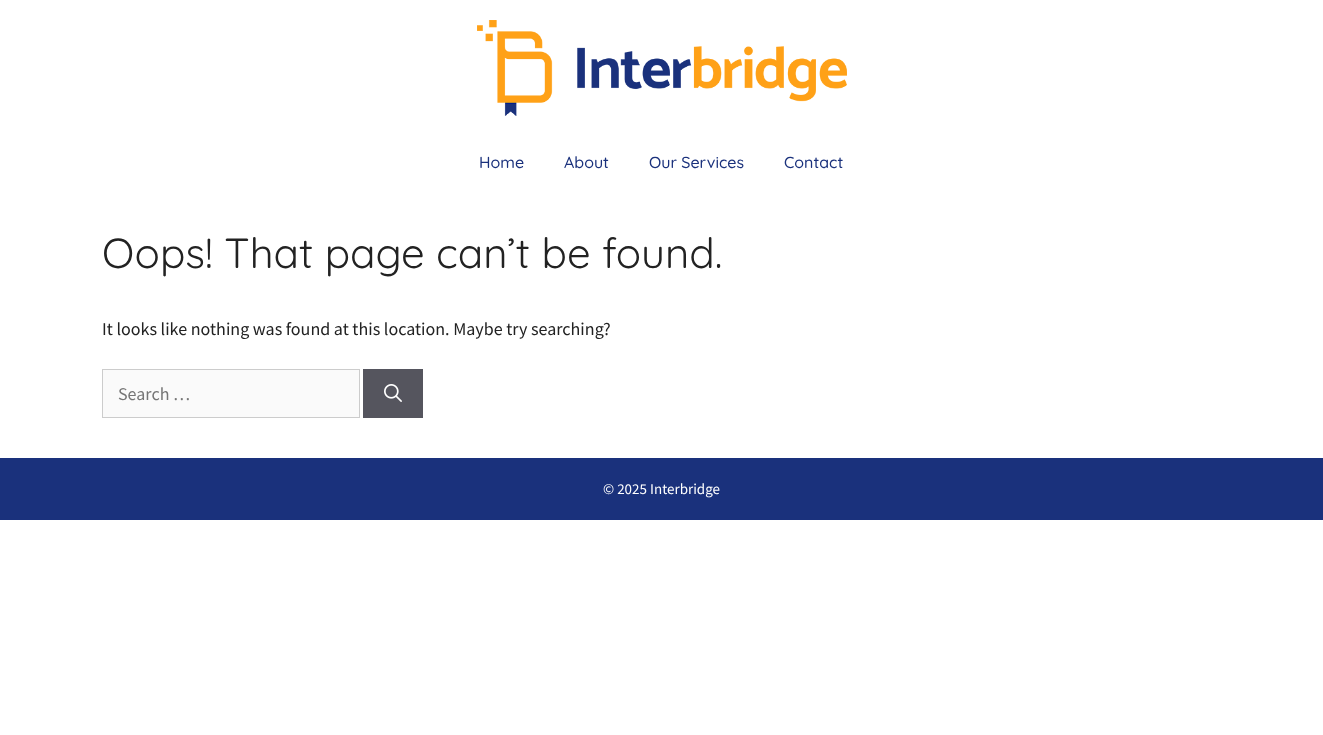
<?xml version="1.0" encoding="UTF-8"?>
<svg xmlns="http://www.w3.org/2000/svg" width="1323" height="735">
    <rect width="100%" height="100%" fill="#FFFFFF"/>
    <image x="477" y="20" width="370" height="96" href="img_01.png"/>
    <text x="479" y="168" font-family="Quicksand" font-size="16" font-weight="500" fill="#1A317C">Home</text>
    <text x="564" y="168" font-family="Quicksand" font-size="16" font-weight="500" fill="#1A317C">About</text>
    <text x="649" y="168" font-family="Quicksand" font-size="16" font-weight="500" fill="#1A317C">Our Services</text>
    <text x="784" y="168" font-family="Quicksand" font-size="16" font-weight="500" fill="#1A317C">Contact</text>
    <text x="102" y="268" font-family="Quicksand" font-size="42" fill="#222222">Oops! That page can’t be found.</text>
    <text x="102" y="335" font-family="Source Sans Pro" font-size="18" fill="#222222">It looks like nothing was found at this location. Maybe try searching?</text>
    <rect x="102.5" y="369.5" width="257" height="48" fill="#FAFAFA" stroke="#CCCCCC"/>
    <text x="118" y="400" font-family="Source Sans Pro" font-size="18" fill="#757575">Search …</text>
    <rect x="363" y="369" width="60" height="49" fill="#55555E"/>
    <image x="384" y="384" width="18" height="18" href="img_02.png"/>
    <rect x="0" y="458" width="1323" height="62" fill="#1A317C"/>
    <text x="603" y="494" font-family="Source Sans Pro" font-size="15" fill="#FFFFFF">© 2025 Interbridge</text>
</svg>
